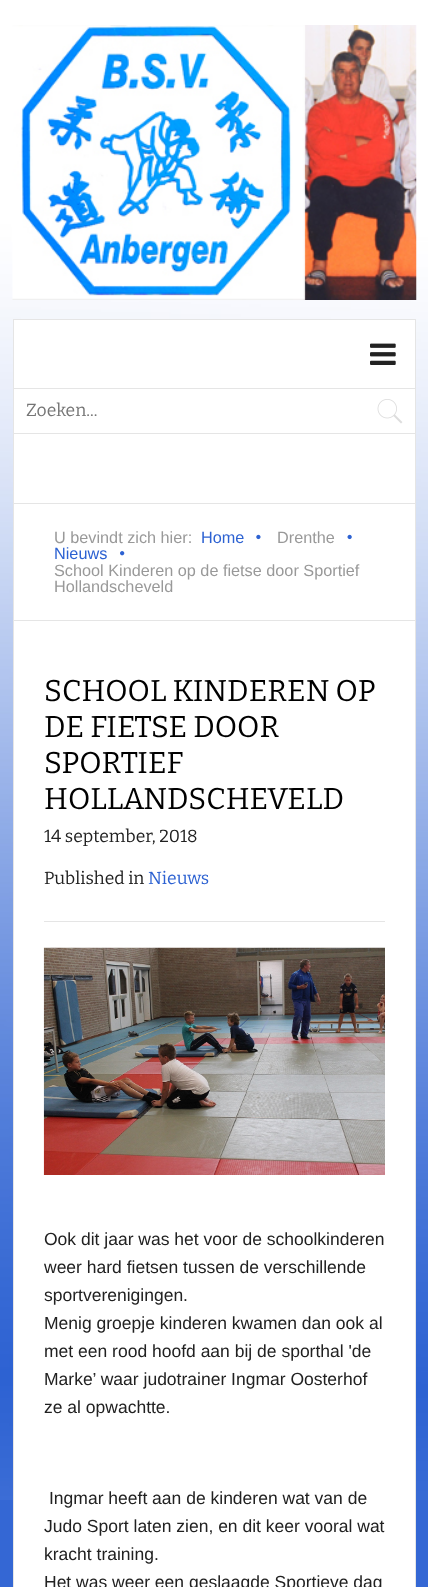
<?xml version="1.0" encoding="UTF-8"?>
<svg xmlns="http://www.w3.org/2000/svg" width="428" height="1587">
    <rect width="100%" height="100%" fill="#3467D4"/>
    <image x="0" y="0" width="428" height="1500" href="img_01.png"/>
    <rect x="13" y="503" width="403" height="1" fill="#E5E5E5"/>
    <image x="12" y="25" width="405" height="275" href="img_02.png"/>
    <rect x="14" y="320" width="401" height="68" fill="#FFFFFF"/>
    <rect x="13" y="319" width="403" height="1" fill="#E5E5E5"/>
    <rect x="415" y="319" width="1" height="69" fill="#E5E5E5"/>
    <rect x="13" y="319" width="1" height="69" fill="#E5E5E5"/>
    <image x="370" y="343" width="26" height="22" href="img_03.png"/>
    <rect x="14" y="389" width="401" height="114" fill="#FFFFFF"/>
    <rect x="13" y="388" width="403" height="1" fill="#E5E5E5"/>
    <rect x="415" y="388" width="1" height="115" fill="#E5E5E5"/>
    <rect x="13" y="388" width="1" height="115" fill="#E5E5E5"/>
    <rect x="14" y="433" width="401" height="1" fill="#E5E5E5"/>
    <text x="26" y="416" font-family="Bitter" font-size="17.5" fill="#757575">Zoeken...</text>
    <image x="377" y="399" width="26" height="25" href="img_04.png"/>
    <rect x="415" y="504" width="1" height="1083" fill="#E5E5E5"/>
    <rect x="13" y="504" width="1" height="1083" fill="#E5E5E5"/>
    <rect x="14" y="504" width="401" height="1083" fill="#FFFFFF"/>
    <rect x="14" y="620" width="401" height="1" fill="#E5E5E5"/>
    <text x="54" y="543" font-family="Liberation Sans" font-size="16.25" fill="#999999">U bevindt zich hier:</text>
    <text x="201" y="543" font-family="Liberation Sans" font-size="16.25" fill="#2D62D2">Home</text>
    <image x="256" y="534" width="5" height="6" href="img_05.png"/>
    <text x="277" y="543" font-family="Liberation Sans" font-size="16.25" fill="#999999">Drenthe</text>
    <image x="347" y="534" width="5" height="6" href="img_06.png"/>
    <text x="54" y="559" font-family="Liberation Sans" font-size="16.25" fill="#2D62D2">Nieuws</text>
    <image x="120" y="551" width="5" height="5" href="img_07.png"/>
    <text font-family="Liberation Sans" font-size="16.25" fill="#999999">
        <tspan x="54" y="576">School Kinderen op de fietse door Sportief</tspan>
        <tspan x="54" y="592">Hollandscheveld</tspan>
    </text>
    <rect x="44" y="921" width="341" height="1" fill="#E5E5E5"/>
    <text font-family="Bitter" font-size="30" fill="#000000">
        <tspan x="44" y="701">SCHOOL KINDEREN OP</tspan>
        <tspan x="44" y="737">DE FIETSE DOOR</tspan>
        <tspan x="44" y="773">SPORTIEF</tspan>
        <tspan x="44" y="809">HOLLANDSCHEVELD</tspan>
    </text>
    <text x="44" y="842" font-family="Bitter" font-size="17.5" fill="#212121">14 september, 2018</text>
    <text x="44" y="884" font-family="Bitter" font-size="17.5" fill="#212121">Published in</text>
    <text x="148" y="884" font-family="Bitter" font-size="17.5" fill="#2D62D2">Nieuws</text>
    <image x="43" y="947" width="342" height="228" href="img_08.png"/>
    <text font-family="Liberation Sans" font-size="17.5" fill="#212121">
        <tspan x="44" y="1245">Ook dit jaar was het voor de schoolkinderen</tspan>
        <tspan x="44" y="1273">weer hard fietsen tussen de verschillende</tspan>
        <tspan x="44" y="1301">sportverenigingen.</tspan>
        <tspan x="44" y="1329">Menig groepje kinderen kwamen dan ook al</tspan>
        <tspan x="44" y="1357">met een rood hoofd aan bij de sporthal 'de</tspan>
        <tspan x="44" y="1385">Marke’ waar judotrainer Ingmar Oosterhof</tspan>
        <tspan x="44" y="1413">ze al opwachtte.</tspan>
    </text>
    <text x="49" y="1504" font-family="Liberation Sans" font-size="17.5" fill="#212121">Ingmar heeft aan de kinderen wat van de</text>
    <text font-family="Liberation Sans" font-size="17.5" fill="#212121">
        <tspan x="44" y="1532">Judo Sport laten zien, en dit keer vooral wat</tspan>
        <tspan x="44" y="1560">kracht training.</tspan>
        <tspan x="44" y="1588">Het was weer een geslaagde Sportieve dag</tspan>
    </text>
</svg>
